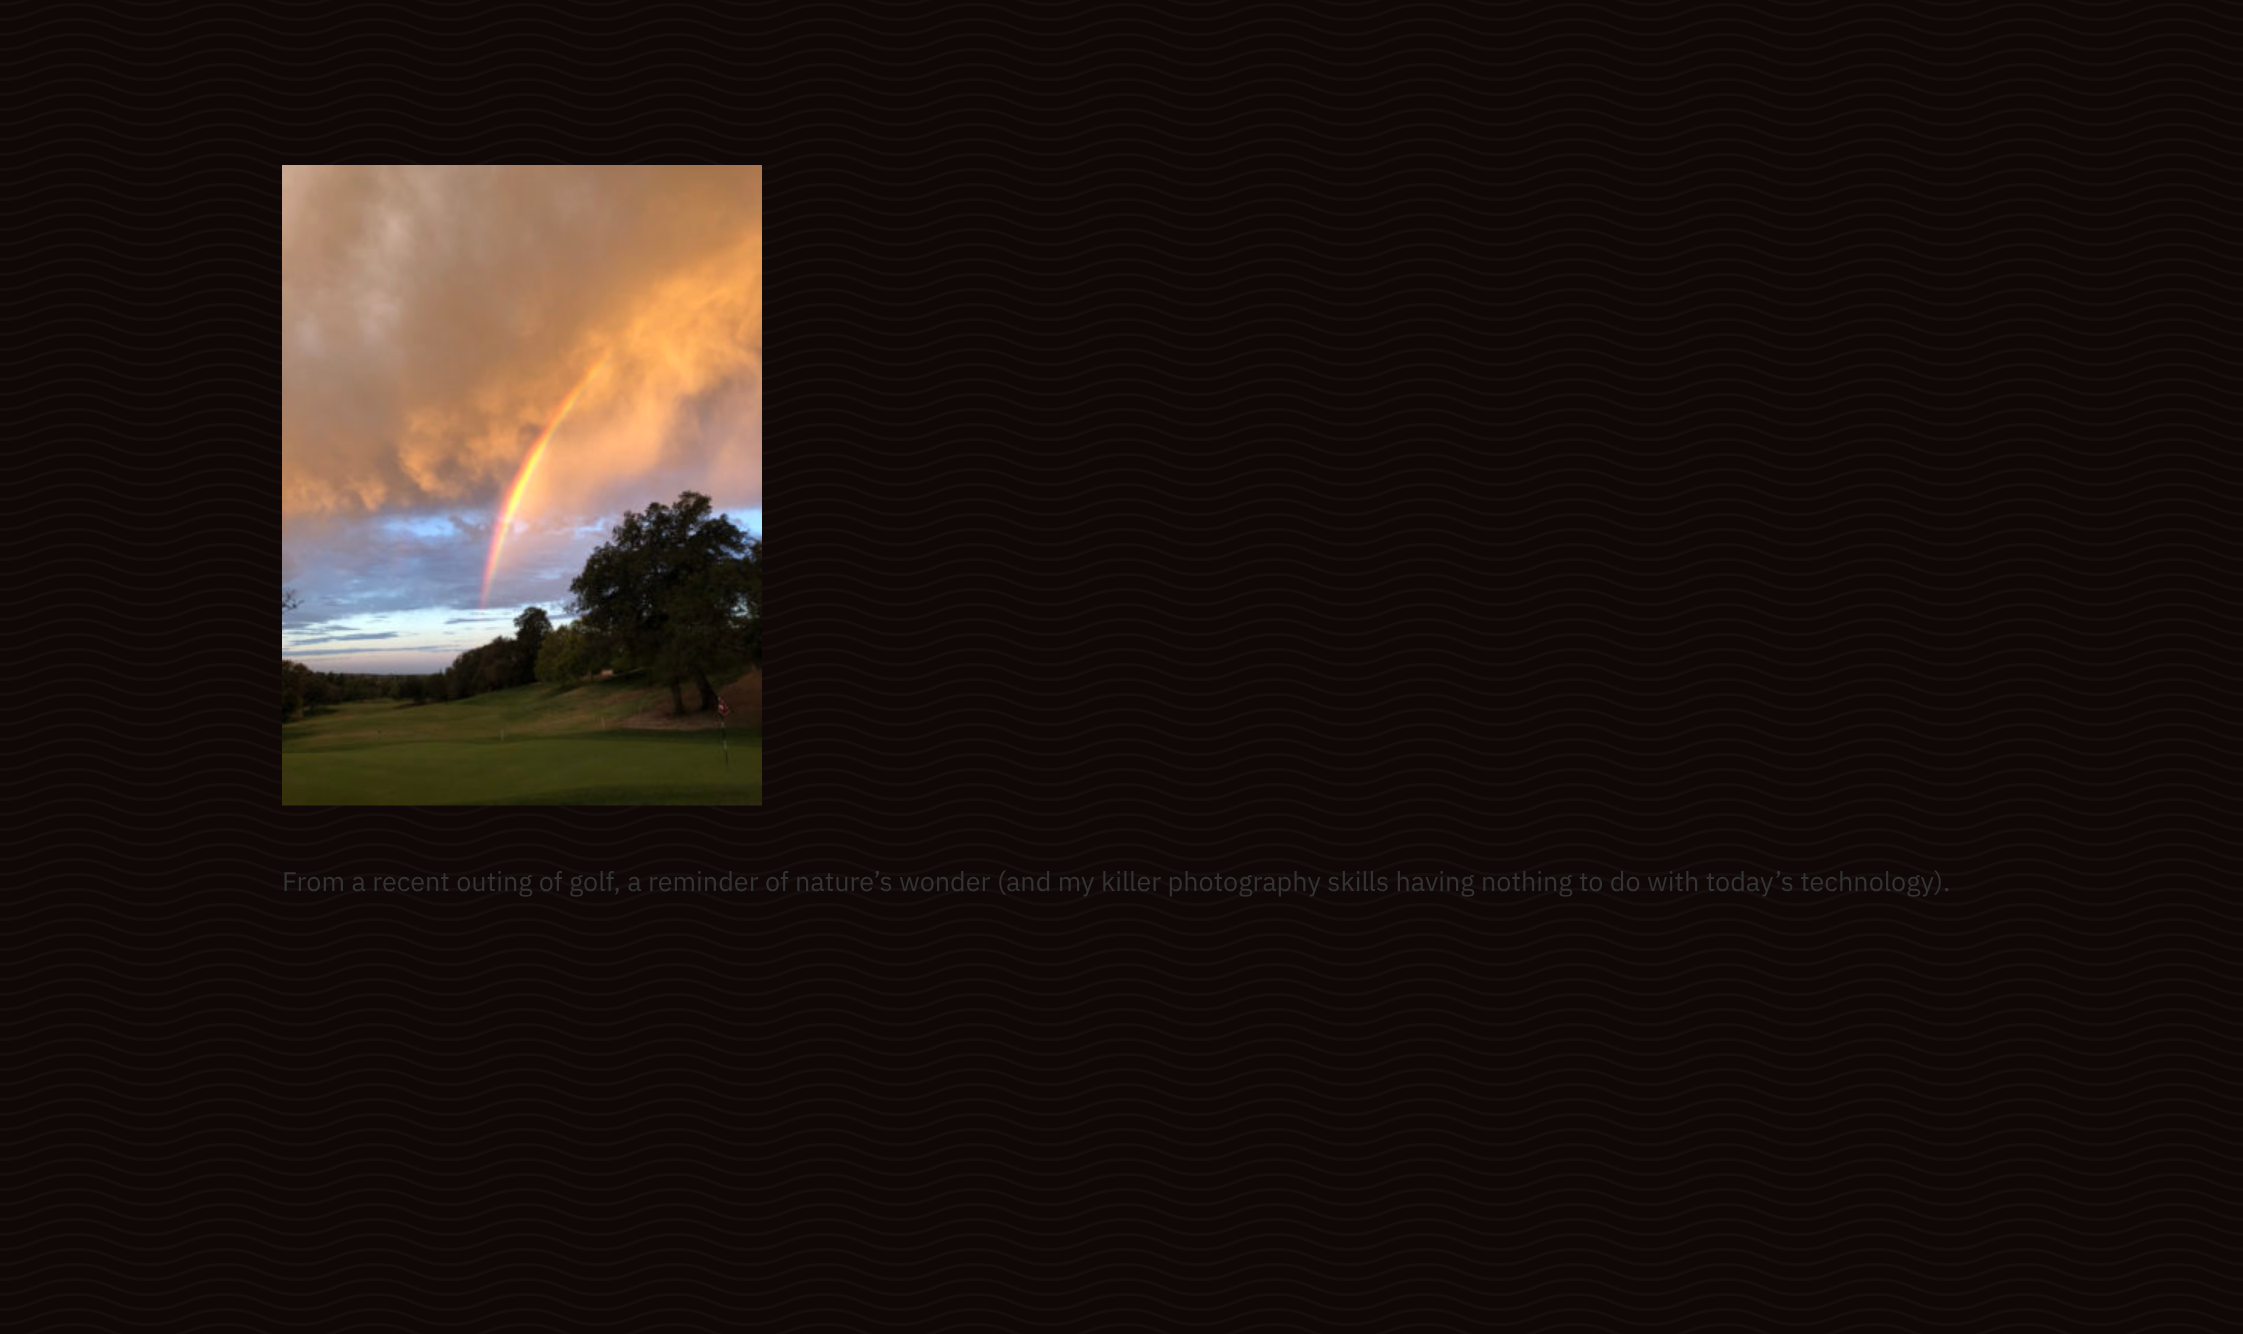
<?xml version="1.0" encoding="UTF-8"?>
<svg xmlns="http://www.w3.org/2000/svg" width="2243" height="1334">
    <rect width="100%" height="100%" fill="#100806"/>
    <image x="0" y="0" width="2243" height="1334" href="img_01.png"/>
    <image x="282" y="165" width="480" height="641" href="img_02.png"/>
    <text x="282" y="891" font-family="IBM Plex Sans" font-size="27" fill="#333333">From a recent outing of golf, a reminder of nature’s wonder (and my killer photography skills having nothing to do with today’s technology).</text>
</svg>
